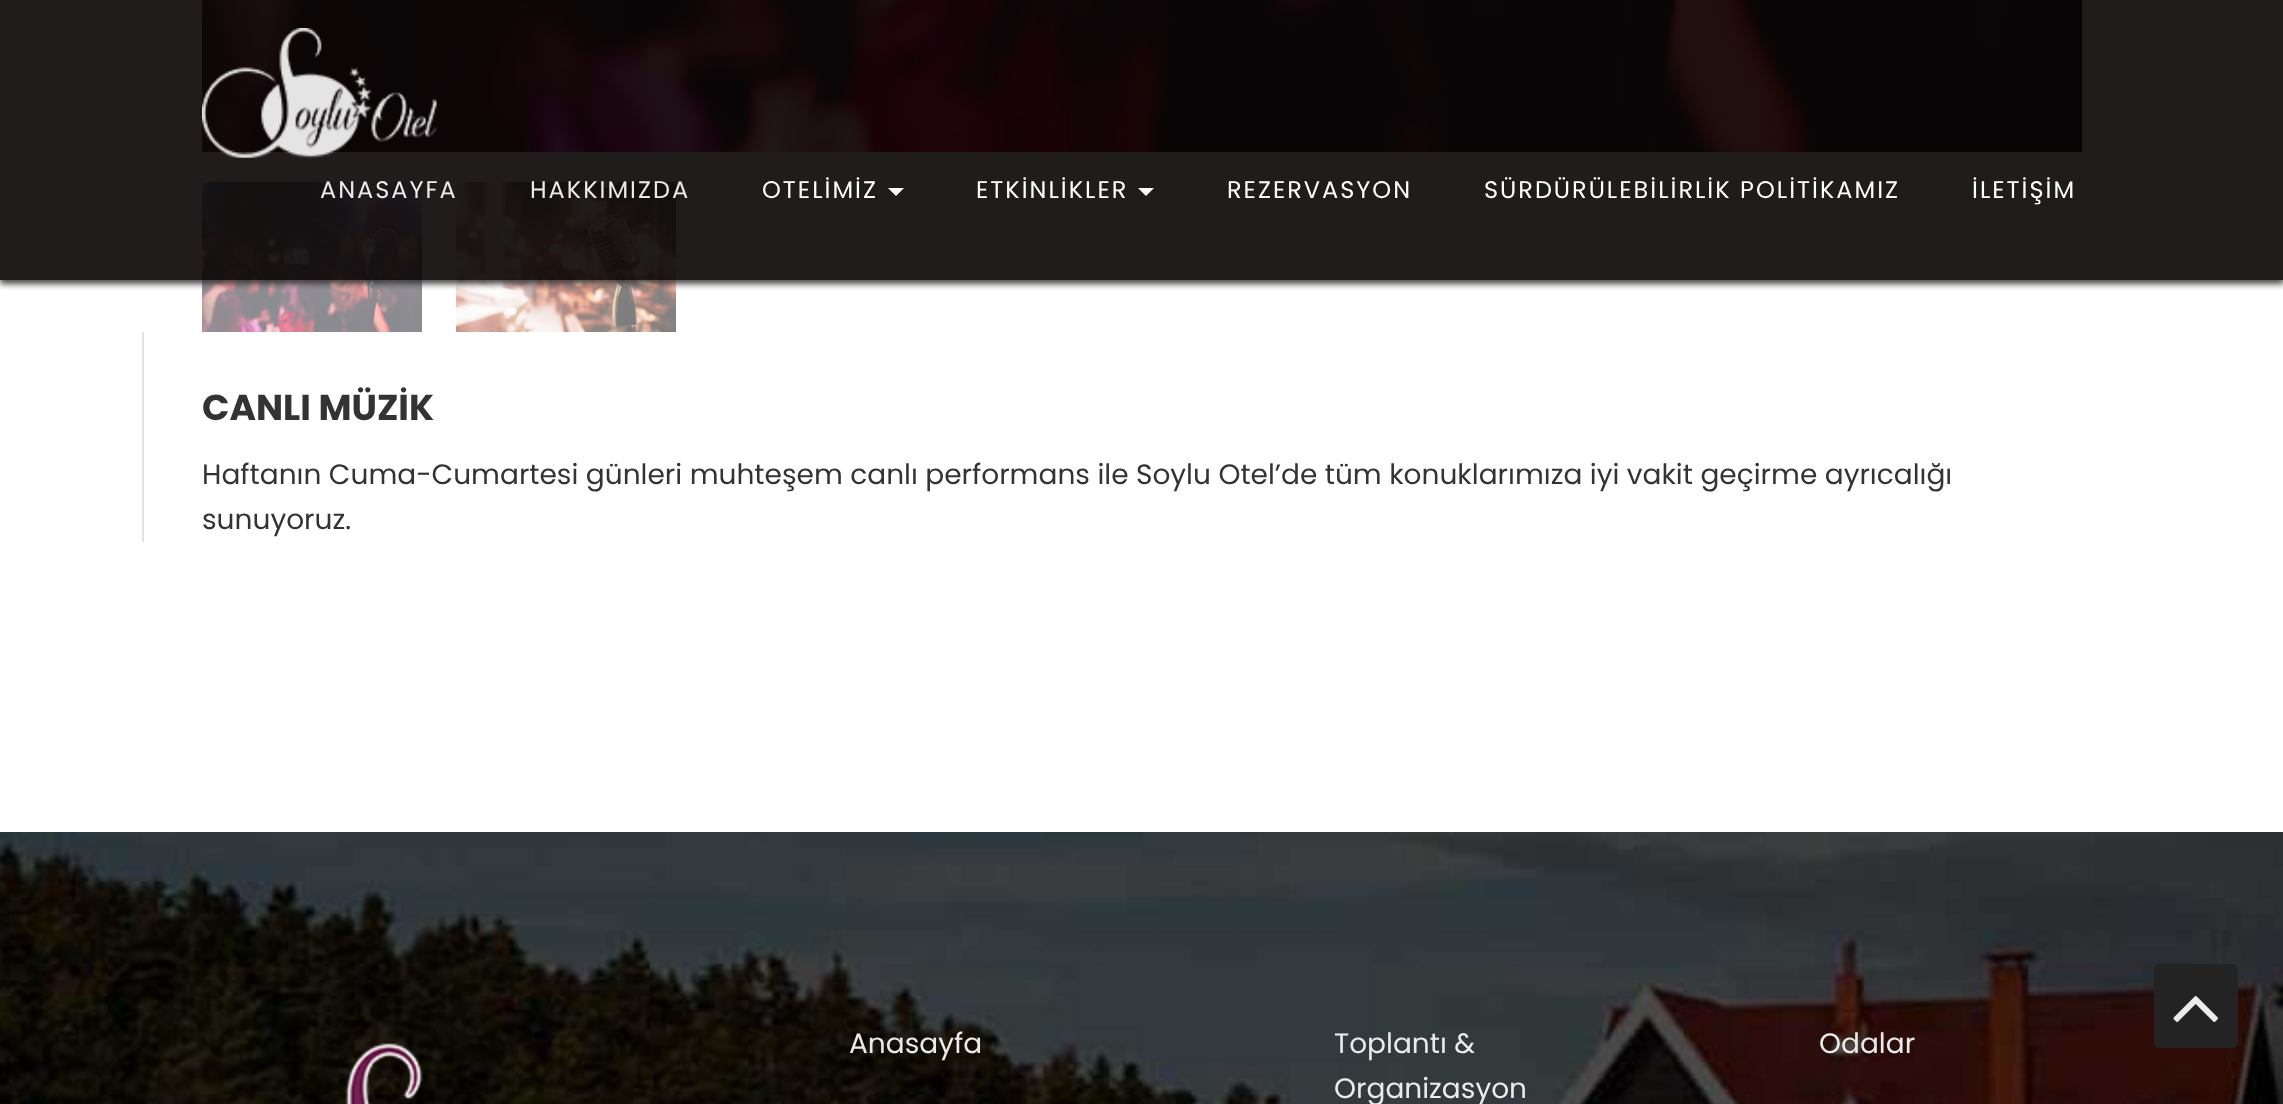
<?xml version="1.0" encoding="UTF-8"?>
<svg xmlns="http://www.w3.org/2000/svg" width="2283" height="1104">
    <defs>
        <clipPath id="clip1"><rect x="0" y="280" width="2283" height="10"/></clipPath>
        <filter id="blur1" x="-50%" y="-200%" width="200%" height="500%"><feGaussianBlur stdDeviation="3"/></filter>
    </defs>
    <rect width="100%" height="100%" fill="#FFFFFF"/>
    <image x="202" y="0" width="1880" height="152" href="img_02.png"/>
    <image x="202" y="182" width="220" height="150" href="img_03.png"/>
    <image x="456" y="182" width="220" height="150" href="img_04.png"/>
    <g clip-path="url(#clip1)">
        <rect x="0" y="4" width="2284" height="280" fill="#353333" fill-opacity="0.9" filter="url(#blur1)"/>
    </g>
    <rect x="0" y="0" width="2283" height="280" fill="#080303" fill-opacity="0.9"/>
    <image x="202" y="28" width="235" height="130" href="img_01.png"/>
    <text x="320" y="198" font-family="Poppins" font-size="24" letter-spacing="2" fill="#EBEBEB">ANASAYFA</text>
    <text x="530" y="198" font-family="Poppins" font-size="24" letter-spacing="2" fill="#EBEBEB">HAKKIMIZDA</text>
    <text x="762" y="198" font-family="Poppins" font-size="24" letter-spacing="2" fill="#FFFFFF">OTELİMİZ</text>
    <path d="M 888 188 H 904 L 896 196 Z" fill="#FFFFFF"/>
    <text x="976" y="198" font-family="Poppins" font-size="24" letter-spacing="2" fill="#FFFFFF">ETKİNLİKLER</text>
    <path d="M 1138 188 H 1154 L 1146 196 Z" fill="#FFFFFF"/>
    <text x="1227" y="198" font-family="Poppins" font-size="24" letter-spacing="2" fill="#FFFFFF">REZERVASYON</text>
    <text x="1484" y="198" font-family="Poppins" font-size="24" letter-spacing="2" fill="#FFFFFF">SÜRDÜRÜLEBİLİRLİK POLİTİKAMIZ</text>
    <text x="1972" y="198" font-family="Poppins" font-size="24" letter-spacing="2" fill="#FFFFFF">İLETİŞİM</text>
    <rect x="142" y="332" width="2" height="210" fill="#E4E4E4"/>
    <text x="202" y="420" font-family="Poppins" font-size="36" font-weight="700" fill="#333333">CANLI MÜZİK</text>
    <text font-family="Poppins" font-size="28" fill="#333333">
        <tspan x="202" y="484">Haftanın Cuma-Cumartesi günleri muhteşem canlı performans ile Soylu Otel’de tüm konuklarımıza iyi vakit geçirme ayrıcalığı</tspan>
        <tspan x="202" y="529">sunuyoruz.</tspan>
    </text>
    <image x="0" y="832" width="2283" height="272" href="img_05.png"/>
    <image x="345" y="1043" width="78" height="61" href="img_06.png"/>
    <text x="849" y="1053" font-family="Poppins" font-size="28" fill="#EBEBEB">Anasayfa</text>
    <text font-family="Poppins" font-size="28" fill="#EBEBEB">
        <tspan x="1334" y="1053">Toplantı &amp;</tspan>
        <tspan x="1334" y="1098">Organizasyon</tspan>
    </text>
    <text x="1819" y="1053" font-family="Poppins" font-size="28" fill="#EBEBEB">Odalar</text>
    <rect x="2154" y="964" width="84" height="84" rx="6" fill="#232323"/>
    <image x="2173" y="996" width="45" height="26" href="img_07.png"/>
</svg>
